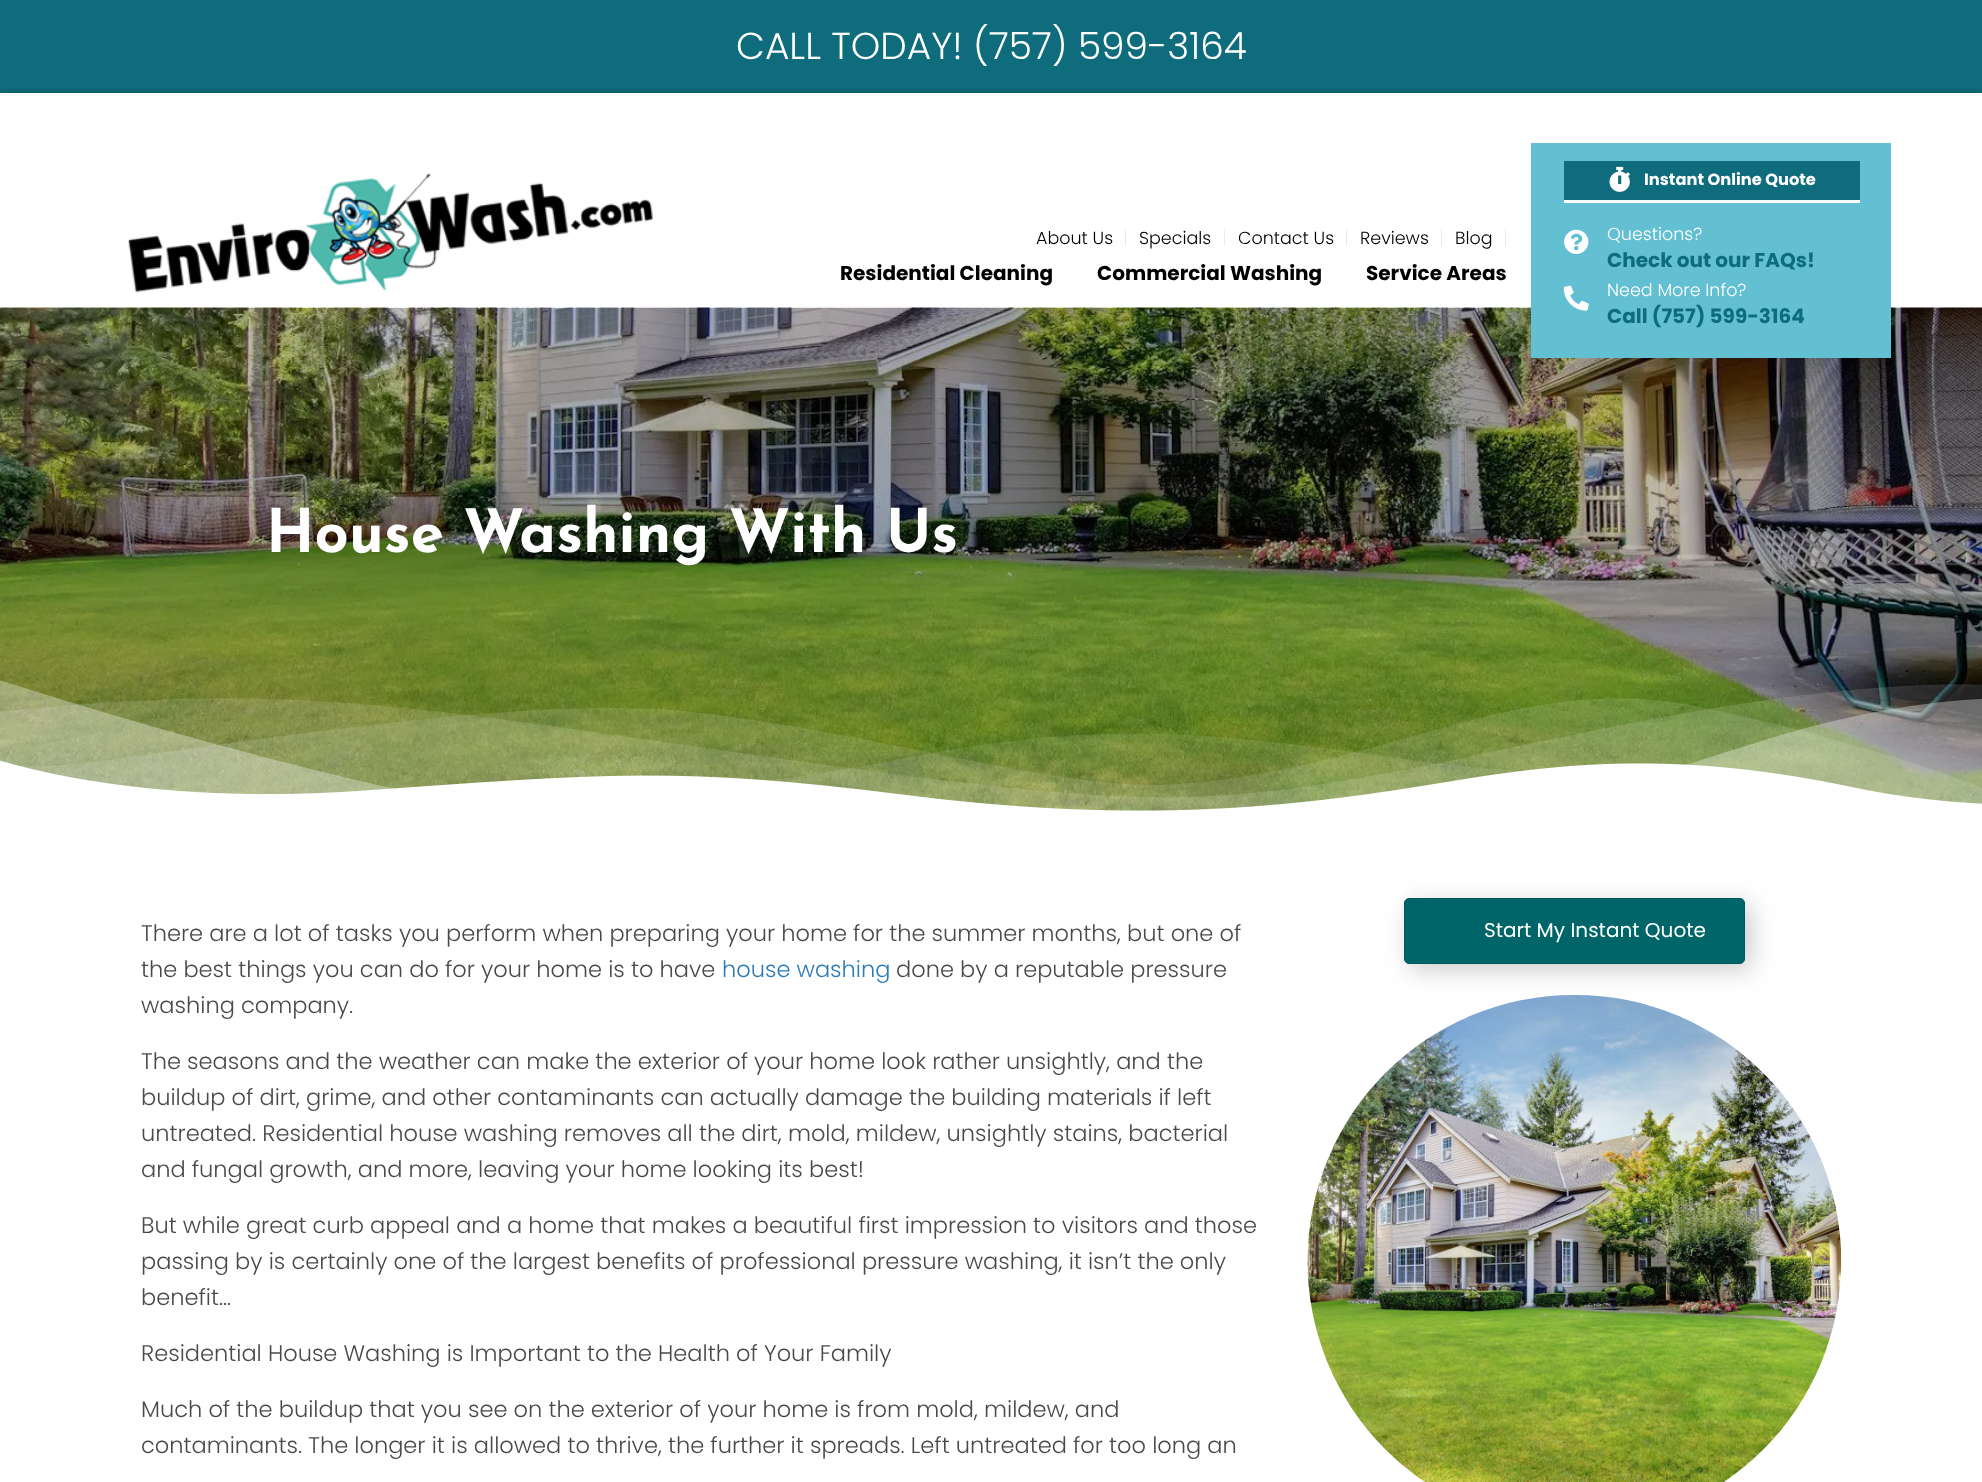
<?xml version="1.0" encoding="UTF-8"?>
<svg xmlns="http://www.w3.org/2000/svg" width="1982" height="1482">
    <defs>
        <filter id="blur1" x="-50%" y="-200%" width="200%" height="500%"><feGaussianBlur stdDeviation="3"/></filter>
        <filter id="blur2" x="-50%" y="-200%" width="200%" height="500%"><feGaussianBlur stdDeviation="12.5"/></filter>
    </defs>
    <rect width="100%" height="100%" fill="#FFFFFF"/>
    <rect x="0" y="0" width="1982" height="93" fill="#0E6C7D"/>
    <text x="736" y="59" font-family="Poppins" font-size="37.5" font-weight="300" fill="#FFFFFF">CALL TODAY! (757) 599-3164</text>
    <rect x="0" y="93" width="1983" height="265" fill="#000000" fill-opacity="0.3" filter="url(#blur1)"/>
    <rect x="0" y="93" width="1982" height="215" fill="#FFFFFF"/>
    <image x="128" y="173" width="525" height="120" href="img_01.png"/>
    <rect x="1125" y="229" width="1" height="17" fill="#EAEAEA"/>
    <text x="1036" y="244" font-family="Poppins" font-size="17.5" font-weight="300" fill="#000000">About Us</text>
    <rect x="1224" y="229" width="1" height="17" fill="#EAEAEA"/>
    <text x="1139" y="244" font-family="Poppins" font-size="17.5" font-weight="300" fill="#000000">Specials</text>
    <rect x="1346" y="229" width="1" height="17" fill="#EAEAEA"/>
    <text x="1238" y="244" font-family="Poppins" font-size="17.5" font-weight="300" fill="#000000">Contact Us</text>
    <rect x="1441" y="229" width="1" height="17" fill="#EAEAEA"/>
    <text x="1360" y="244" font-family="Poppins" font-size="17.5" font-weight="300" fill="#000000">Reviews</text>
    <rect x="1505" y="229" width="1" height="17" fill="#EAEAEA"/>
    <text x="1455" y="244" font-family="Poppins" font-size="17.5" font-weight="300" fill="#000000">Blog</text>
    <text x="840" y="280" font-family="Poppins" font-size="20" font-weight="700" fill="#000000">Residential Cleaning</text>
    <text x="1097" y="280" font-family="Poppins" font-size="20" font-weight="700" fill="#000000">Commercial Washing</text>
    <text x="1366" y="280" font-family="Poppins" font-size="20" font-weight="700" fill="#000000">Service Areas</text>
    <image x="0" y="307" width="1982" height="504" href="img_05.png"/>
    <rect x="1531" y="143" width="360" height="215" fill="#63C0D3"/>
    <rect x="1564" y="200" width="296" height="3" fill="#FFFFFF"/>
    <rect x="1564" y="161" width="296" height="39" fill="#0E6C7D"/>
    <image x="1609" y="166" width="21" height="26" href="img_02.png"/>
    <text x="1644" y="185" font-family="Poppins" font-size="16.25" font-weight="700" fill="#FFFFFF">Instant Online Quote</text>
    <image x="1564" y="229" width="25" height="25" href="img_03.png"/>
    <text x="1607" y="240" font-family="Poppins" font-size="17.5" font-weight="300" fill="#FFFFFF">Questions?</text>
    <text x="1607" y="267" font-family="Poppins" font-size="20" font-weight="700" fill="#0E6C7D">Check out our FAQs!</text>
    <image x="1563" y="285" width="26" height="26" href="img_04.png"/>
    <text x="1607" y="296" font-family="Poppins" font-size="17.5" font-weight="300" fill="#FFFFFF">Need More Info?</text>
    <text x="1607" y="323" font-family="Poppins" font-size="20" font-weight="700" fill="#0E6C7D">Call (757) 599-3164</text>
    <text x="266" y="552" font-family="Josefin Sans" font-size="60" font-weight="700" fill="#FFFFFF">House Washing With Us</text>
    <image x="0" y="680" width="1982" height="137" href="img_06.png"/>
    <text font-family="Poppins" font-size="22.5" font-weight="300" fill="#494949">
        <tspan x="141" y="941">There are a lot of tasks you perform when preparing your home for the summer months, but one of</tspan>
        <tspan x="141" y="977">the best things you can do for your home is to have</tspan>
    </text>
    <text x="722" y="977" font-family="Poppins" font-size="22.5" font-weight="300" fill="#2B7BB9">house washing</text>
    <text x="896" y="977" font-family="Poppins" font-size="22.5" font-weight="300" fill="#494949">done by a reputable pressure</text>
    <text x="141" y="1013" font-family="Poppins" font-size="22.5" font-weight="300" fill="#494949">washing company.</text>
    <text font-family="Poppins" font-size="22.5" font-weight="300" fill="#494949">
        <tspan x="141" y="1069">The seasons and the weather can make the exterior of your home look rather unsightly, and the</tspan>
        <tspan x="141" y="1105">buildup of dirt, grime, and other contaminants can actually damage the building materials if left</tspan>
        <tspan x="141" y="1141">untreated. Residential house washing removes all the dirt, mold, mildew, unsightly stains, bacterial</tspan>
        <tspan x="141" y="1177">and fungal growth, and more, leaving your home looking its best!</tspan>
    </text>
    <text font-family="Poppins" font-size="22.5" font-weight="300" fill="#494949">
        <tspan x="141" y="1233">But while great curb appeal and a home that makes a beautiful first impression to visitors and those</tspan>
        <tspan x="141" y="1269">passing by is certainly one of the largest benefits of professional pressure washing, it isn’t the only</tspan>
        <tspan x="141" y="1305">benefit…</tspan>
    </text>
    <text x="141" y="1361" font-family="Poppins" font-size="22.5" font-weight="300" fill="#494949">Residential House Washing is Important to the Health of Your Family</text>
    <text font-family="Poppins" font-size="22.5" font-weight="300" fill="#494949">
        <tspan x="141" y="1417">Much of the buildup that you see on the exterior of your home is from mold, mildew, and</tspan>
        <tspan x="141" y="1453">contaminants. The longer it is allowed to thrive, the further it spreads. Left untreated for too long an</tspan>
    </text>
    <rect x="1410" y="904" width="341" height="66" rx="5" fill="#000000" fill-opacity="0.2" filter="url(#blur2)"/>
    <rect x="1404.5" y="898.5" width="340" height="65" rx="4.5" fill="#006568" stroke="#00595C"/>
    <text x="1484" y="937" font-family="Poppins" font-size="20" fill="#FFFFFF">Start My Instant Quote</text>
    <image x="1307" y="995" width="535" height="487" href="img_07.png"/>
</svg>
